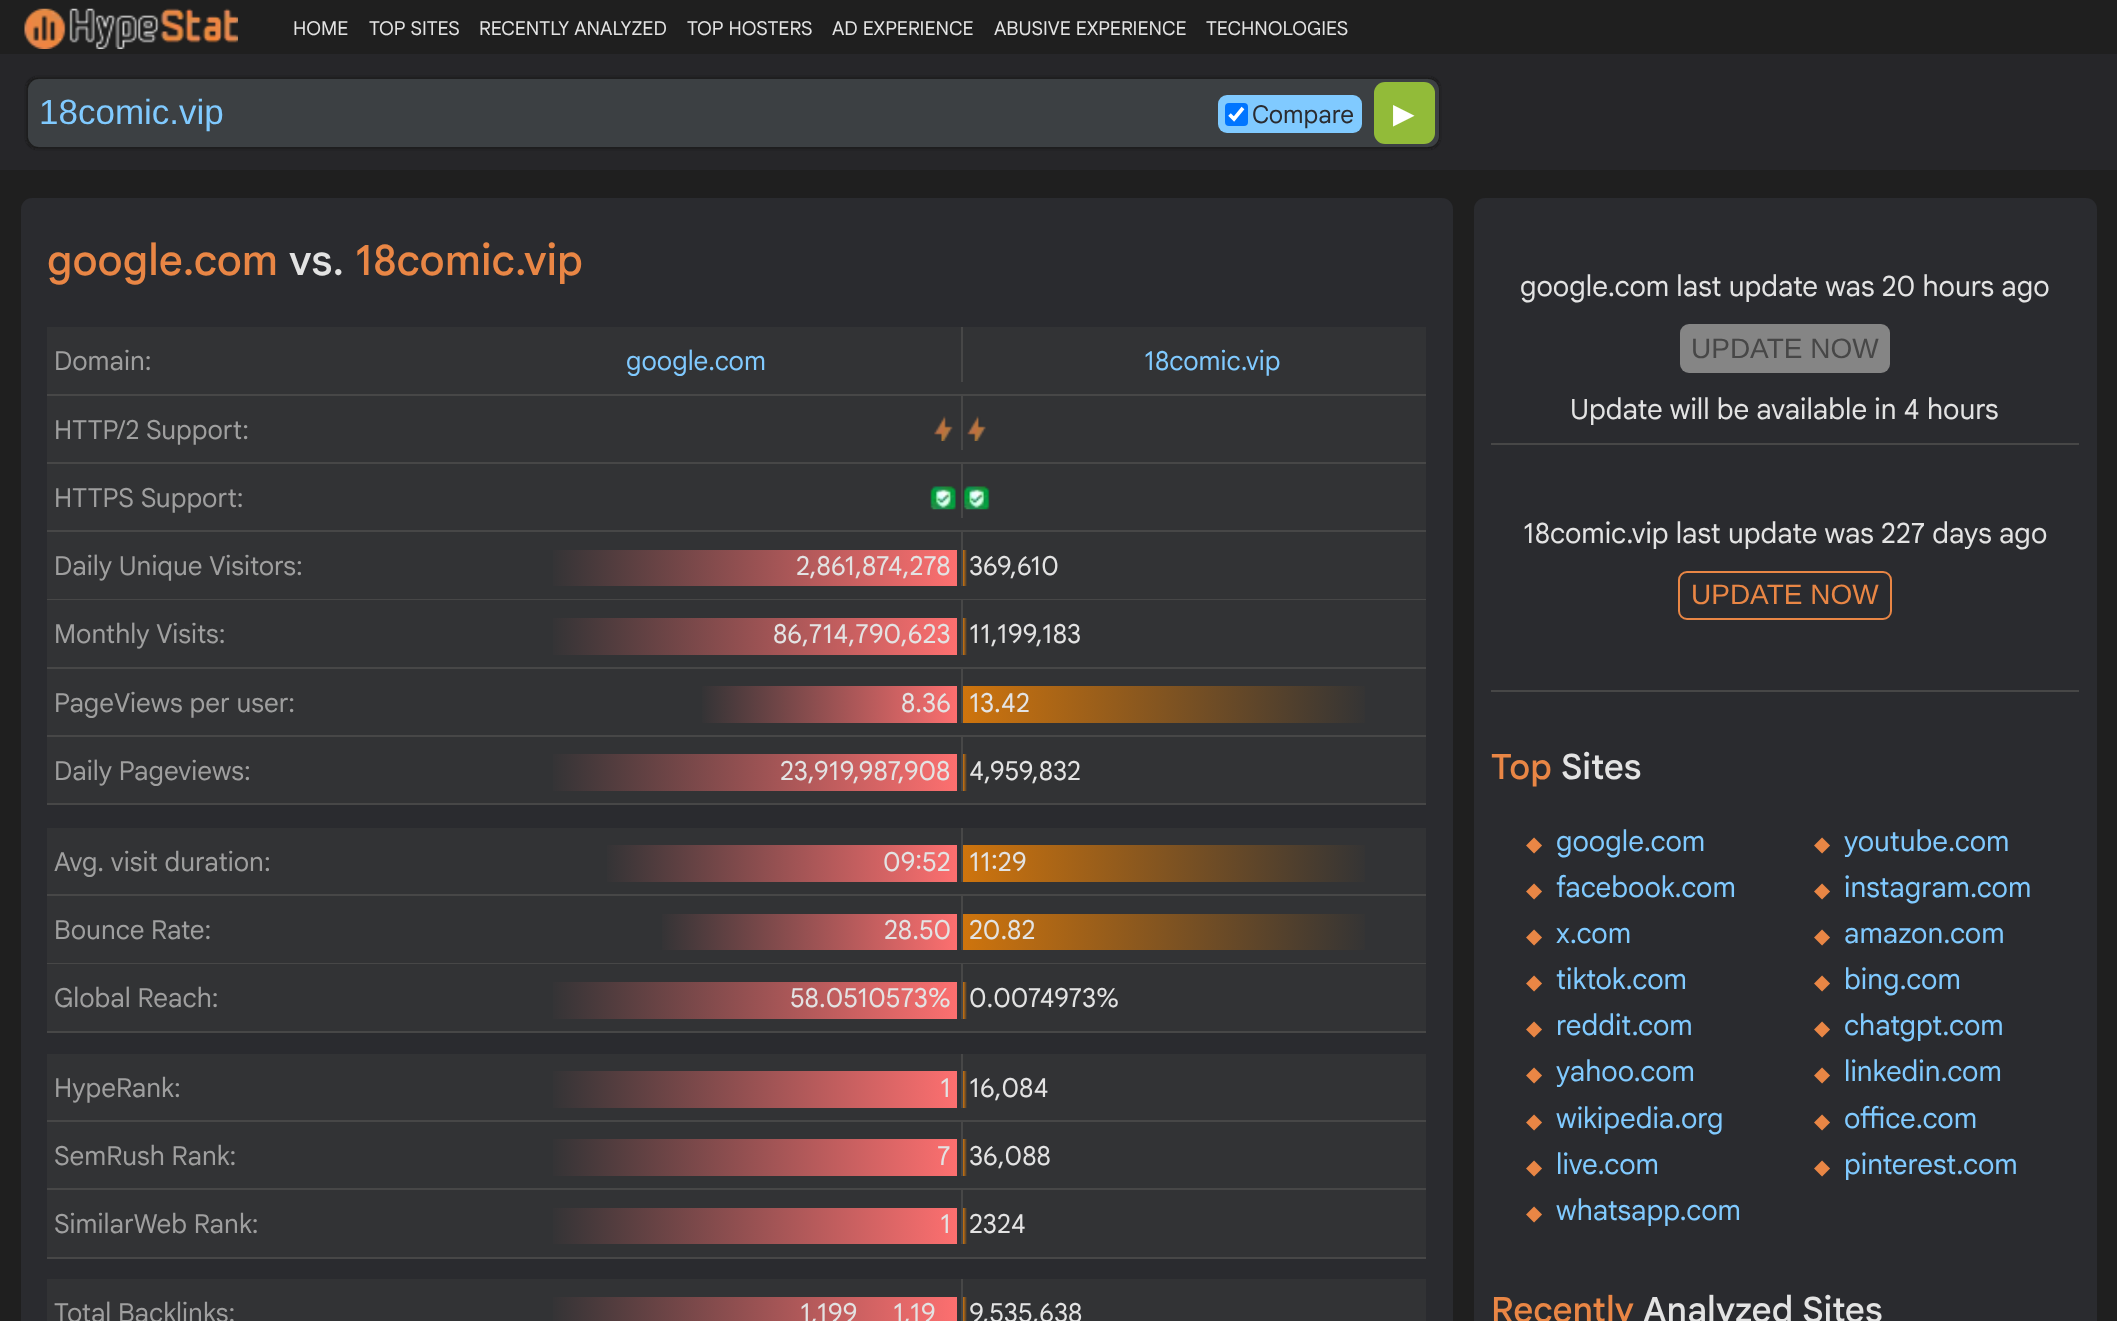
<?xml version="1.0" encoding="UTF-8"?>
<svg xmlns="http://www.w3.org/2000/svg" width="2117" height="1321">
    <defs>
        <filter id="blur1" x="-50%" y="-200%" width="200%" height="500%"><feGaussianBlur stdDeviation="1"/></filter>
        <linearGradient id="g1" gradientUnits="userSpaceOnUse" x1="961" y1="559" x2="548" y2="559"><stop offset="0" stop-color="#FF7070"/><stop offset="1" stop-color="#323335"/></linearGradient>
        <linearGradient id="g2" gradientUnits="userSpaceOnUse" x1="963" y1="559" x2="967" y2="559"><stop offset="0" stop-color="#CE740D"/><stop offset="1" stop-color="#323335"/></linearGradient>
        <linearGradient id="g3" gradientUnits="userSpaceOnUse" x1="961" y1="627" x2="548" y2="627"><stop offset="0" stop-color="#FF7070"/><stop offset="1" stop-color="#323335"/></linearGradient>
        <linearGradient id="g4" gradientUnits="userSpaceOnUse" x1="963" y1="627" x2="967" y2="627"><stop offset="0" stop-color="#CE740D"/><stop offset="1" stop-color="#323335"/></linearGradient>
        <linearGradient id="g5" gradientUnits="userSpaceOnUse" x1="961" y1="696" x2="699" y2="696"><stop offset="0" stop-color="#FF7070"/><stop offset="1" stop-color="#323335"/></linearGradient>
        <linearGradient id="g6" gradientUnits="userSpaceOnUse" x1="963" y1="696" x2="1372" y2="696"><stop offset="0" stop-color="#CE740D"/><stop offset="1" stop-color="#323335"/></linearGradient>
        <linearGradient id="g7" gradientUnits="userSpaceOnUse" x1="961" y1="764" x2="548" y2="764"><stop offset="0" stop-color="#FF7070"/><stop offset="1" stop-color="#323335"/></linearGradient>
        <linearGradient id="g8" gradientUnits="userSpaceOnUse" x1="963" y1="764" x2="967" y2="764"><stop offset="0" stop-color="#CE740D"/><stop offset="1" stop-color="#323335"/></linearGradient>
        <linearGradient id="g9" gradientUnits="userSpaceOnUse" x1="961" y1="855" x2="603" y2="855"><stop offset="0" stop-color="#FF7070"/><stop offset="1" stop-color="#323335"/></linearGradient>
        <linearGradient id="g10" gradientUnits="userSpaceOnUse" x1="963" y1="855" x2="1372" y2="855"><stop offset="0" stop-color="#CE740D"/><stop offset="1" stop-color="#323335"/></linearGradient>
        <linearGradient id="g11" gradientUnits="userSpaceOnUse" x1="961" y1="923" x2="658" y2="923"><stop offset="0" stop-color="#FF7070"/><stop offset="1" stop-color="#323335"/></linearGradient>
        <linearGradient id="g12" gradientUnits="userSpaceOnUse" x1="963" y1="923" x2="1372" y2="923"><stop offset="0" stop-color="#CE740D"/><stop offset="1" stop-color="#323335"/></linearGradient>
        <linearGradient id="g13" gradientUnits="userSpaceOnUse" x1="961" y1="991" x2="548" y2="991"><stop offset="0" stop-color="#FF7070"/><stop offset="1" stop-color="#323335"/></linearGradient>
        <linearGradient id="g14" gradientUnits="userSpaceOnUse" x1="963" y1="991" x2="967" y2="991"><stop offset="0" stop-color="#CE740D"/><stop offset="1" stop-color="#323335"/></linearGradient>
        <linearGradient id="g15" gradientUnits="userSpaceOnUse" x1="961" y1="1081" x2="548" y2="1081"><stop offset="0" stop-color="#FF7070"/><stop offset="1" stop-color="#323335"/></linearGradient>
        <linearGradient id="g16" gradientUnits="userSpaceOnUse" x1="963" y1="1081" x2="967" y2="1081"><stop offset="0" stop-color="#CE740D"/><stop offset="1" stop-color="#323335"/></linearGradient>
        <linearGradient id="g17" gradientUnits="userSpaceOnUse" x1="961" y1="1149" x2="548" y2="1149"><stop offset="0" stop-color="#FF7070"/><stop offset="1" stop-color="#323335"/></linearGradient>
        <linearGradient id="g18" gradientUnits="userSpaceOnUse" x1="963" y1="1149" x2="967" y2="1149"><stop offset="0" stop-color="#CE740D"/><stop offset="1" stop-color="#323335"/></linearGradient>
        <linearGradient id="g19" gradientUnits="userSpaceOnUse" x1="961" y1="1217" x2="548" y2="1217"><stop offset="0" stop-color="#FF7070"/><stop offset="1" stop-color="#323335"/></linearGradient>
        <linearGradient id="g20" gradientUnits="userSpaceOnUse" x1="963" y1="1217" x2="967" y2="1217"><stop offset="0" stop-color="#CE740D"/><stop offset="1" stop-color="#323335"/></linearGradient>
        <linearGradient id="g21" gradientUnits="userSpaceOnUse" x1="961" y1="1306" x2="548" y2="1306"><stop offset="0" stop-color="#FF7070"/><stop offset="1" stop-color="#323335"/></linearGradient>
        <linearGradient id="g22" gradientUnits="userSpaceOnUse" x1="963" y1="1306" x2="967" y2="1306"><stop offset="0" stop-color="#CE740D"/><stop offset="1" stop-color="#323335"/></linearGradient>
    </defs>
    <rect width="100%" height="100%" fill="#1F1F1F"/>
    <image x="24" y="8" width="214" height="41" href="img_01.png"/>
    <text x="293" y="35" font-family="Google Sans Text" font-size="19.25" fill="#E3E3E3">HOME</text>
    <text x="369" y="35" font-family="Google Sans Text" font-size="19.25" fill="#E3E3E3">TOP SITES</text>
    <text x="479" y="35" font-family="Google Sans Text" font-size="19.25" fill="#E3E3E3">RECENTLY ANALYZED</text>
    <text x="687" y="35" font-family="Google Sans Text" font-size="19.25" fill="#E3E3E3">TOP HOSTERS</text>
    <text x="832" y="35" font-family="Google Sans Text" font-size="19.25" fill="#E3E3E3">AD EXPERIENCE</text>
    <text x="994" y="35" font-family="Google Sans Text" font-size="19.25" fill="#E3E3E3">ABUSIVE EXPERIENCE</text>
    <text x="1206" y="35" font-family="Google Sans Text" font-size="19.25" fill="#E3E3E3">TECHNOLOGIES</text>
    <rect x="0" y="54" width="2117" height="116" fill="#262629"/>
    <rect x="26" y="77" width="1414" height="72" rx="12" fill="#1A1A1A" filter="url(#blur1)"/>
    <rect x="28" y="79" width="1411" height="68" rx="11" fill="#3C4043"/>
    <text x="39" y="124" font-family="Liberation Sans" font-size="35" fill="#80CAFF">18comic.vip</text>
    <rect x="1218" y="95" width="144" height="38" rx="9" fill="#80CAFF"/>
    <rect x="1225" y="103" width="23" height="23" rx="4" fill="#0075FF"/>
    <path d="M 1229.5 114.5 L 1234 119 L 1243 108" fill="none" stroke="#FFFFFF" stroke-width="3.6"/>
    <text x="1252" y="123" font-family="Google Sans Text" font-size="24.5" fill="#2A2B2F">Compare</text>
    <rect x="1374" y="82" width="61" height="62" rx="11" fill="#92BB39"/>
    <text x="1393" y="123" font-family="DejaVu Sans" font-size="28" fill="#FFFFFF">▶</text>
    <rect x="21" y="198" width="1432" height="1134" rx="11" fill="#2A2B2F"/>
    <text x="47" y="275" font-family="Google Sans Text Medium" font-size="42" font-weight="500" fill="#E98645">google.com</text>
    <text x="289" y="275" font-family="Google Sans Text Medium" font-size="42" font-weight="500" fill="#E3E3E3">vs.</text>
    <text x="355" y="275" font-family="Google Sans Text Medium" font-size="42" font-weight="500" fill="#E98645">18comic.vip</text>
    <rect x="47" y="327" width="1379" height="67" fill="#323335"/>
    <rect x="47" y="394" width="1379" height="2" fill="#474747"/>
    <text x="54" y="370" font-family="Google Sans Text" font-size="26.25" fill="#9F9F9F">Domain:</text>
    <rect x="961" y="327" width="2" height="55" fill="#474747"/>
    <text x="626" y="370" font-family="Google Sans Text" font-size="26.25" fill="#80CAFF">google.com</text>
    <text x="1144" y="370" font-family="Google Sans Text" font-size="26.25" fill="#80CAFF">18comic.vip</text>
    <rect x="47" y="396" width="1379" height="66" fill="#323335"/>
    <rect x="47" y="462" width="1379" height="2" fill="#474747"/>
    <text x="54" y="439" font-family="Google Sans Text" font-size="26.25" fill="#9F9F9F">HTTP/2 Support:</text>
    <rect x="961" y="396" width="2" height="54" fill="#474747"/>
    <image x="934" y="416" width="19" height="25" href="img_02.png"/>
    <image x="967" y="416" width="19" height="25" href="img_03.png"/>
    <rect x="47" y="464" width="1379" height="66" fill="#323335"/>
    <rect x="47" y="530" width="1379" height="2" fill="#474747"/>
    <text x="54" y="507" font-family="Google Sans Text" font-size="26.25" fill="#9F9F9F">HTTPS Support:</text>
    <rect x="961" y="464" width="2" height="54" fill="#474747"/>
    <image x="930" y="486" width="26" height="24" href="img_04.png"/>
    <image x="963" y="486" width="27" height="24" href="img_05.png"/>
    <rect x="47" y="532" width="1379" height="67" fill="#323335"/>
    <rect x="47" y="599" width="1379" height="1" fill="#474747"/>
    <text x="54" y="575" font-family="Google Sans Text" font-size="26.25" fill="#9F9F9F">Daily Unique Visitors:</text>
    <rect x="553" y="550" width="404" height="36" fill="url(#g1)"/>
    <rect x="961" y="532" width="2" height="54" fill="#474747"/>
    <text x="796" y="575" font-family="Google Sans Text" font-size="26.25" fill="#E3E3E3">2,861,874,278</text>
    <rect x="963" y="550" width="4" height="36" fill="url(#g2)"/>
    <text x="969" y="575" font-family="Google Sans Text" font-size="26.25" fill="#E3E3E3">369,610</text>
    <rect x="47" y="600" width="1379" height="67" fill="#323335"/>
    <rect x="47" y="667" width="1379" height="2" fill="#474747"/>
    <text x="54" y="643" font-family="Google Sans Text" font-size="26.25" fill="#9F9F9F">Monthly Visits:</text>
    <rect x="553" y="618" width="404" height="37" fill="url(#g3)"/>
    <rect x="961" y="600" width="2" height="55" fill="#474747"/>
    <text x="773" y="643" font-family="Google Sans Text" font-size="26.25" fill="#E3E3E3">86,714,790,623</text>
    <rect x="963" y="618" width="4" height="37" fill="url(#g4)"/>
    <text x="969" y="643" font-family="Google Sans Text" font-size="26.25" fill="#E3E3E3">11,199,183</text>
    <rect x="47" y="669" width="1379" height="66" fill="#323335"/>
    <rect x="47" y="735" width="1379" height="2" fill="#474747"/>
    <text x="54" y="712" font-family="Google Sans Text" font-size="26.25" fill="#9F9F9F">PageViews per user:</text>
    <rect x="702" y="686" width="255" height="37" fill="url(#g5)"/>
    <rect x="961" y="669" width="2" height="54" fill="#474747"/>
    <text x="901" y="712" font-family="Google Sans Text" font-size="26.25" fill="#E3E3E3">8.36</text>
    <rect x="963" y="686" width="402" height="37" fill="url(#g6)"/>
    <text x="969" y="712" font-family="Google Sans Text" font-size="26.25" fill="#E3E3E3">13.42</text>
    <rect x="47" y="737" width="1379" height="66" fill="#323335"/>
    <rect x="47" y="803" width="1379" height="2" fill="#474747"/>
    <text x="54" y="780" font-family="Google Sans Text" font-size="26.25" fill="#9F9F9F">Daily Pageviews:</text>
    <rect x="553" y="754" width="404" height="37" fill="url(#g7)"/>
    <rect x="961" y="737" width="2" height="54" fill="#474747"/>
    <text x="780" y="780" font-family="Google Sans Text" font-size="26.25" fill="#E3E3E3">23,919,987,908</text>
    <rect x="963" y="754" width="4" height="37" fill="url(#g8)"/>
    <text x="969" y="780" font-family="Google Sans Text" font-size="26.25" fill="#E3E3E3">4,959,832</text>
    <rect x="47" y="828" width="1379" height="66" fill="#323335"/>
    <rect x="47" y="894" width="1379" height="2" fill="#474747"/>
    <text x="54" y="871" font-family="Google Sans Text" font-size="26.25" fill="#9F9F9F">Avg. visit duration:</text>
    <rect x="607" y="845" width="350" height="37" fill="url(#g9)"/>
    <rect x="961" y="828" width="2" height="54" fill="#474747"/>
    <text x="883" y="871" font-family="Google Sans Text" font-size="26.25" fill="#E3E3E3">09:52</text>
    <rect x="963" y="845" width="402" height="37" fill="url(#g10)"/>
    <text x="969" y="871" font-family="Google Sans Text" font-size="26.25" fill="#E3E3E3">11:29</text>
    <rect x="47" y="896" width="1379" height="67" fill="#323335"/>
    <rect x="47" y="963" width="1379" height="1" fill="#474747"/>
    <text x="54" y="939" font-family="Google Sans Text" font-size="26.25" fill="#9F9F9F">Bounce Rate:</text>
    <rect x="662" y="914" width="295" height="36" fill="url(#g11)"/>
    <rect x="961" y="896" width="2" height="54" fill="#474747"/>
    <text x="884" y="939" font-family="Google Sans Text" font-size="26.25" fill="#E3E3E3">28.50</text>
    <rect x="963" y="914" width="402" height="36" fill="url(#g12)"/>
    <text x="969" y="939" font-family="Google Sans Text" font-size="26.25" fill="#E3E3E3">20.82</text>
    <rect x="47" y="964" width="1379" height="67" fill="#323335"/>
    <rect x="47" y="1031" width="1379" height="2" fill="#474747"/>
    <text x="54" y="1007" font-family="Google Sans Text" font-size="26.25" fill="#9F9F9F">Global Reach:</text>
    <rect x="553" y="982" width="404" height="37" fill="url(#g13)"/>
    <rect x="961" y="964" width="2" height="55" fill="#474747"/>
    <text x="790" y="1007" font-family="Google Sans Text" font-size="26.25" fill="#E3E3E3">58.0510573%</text>
    <rect x="963" y="982" width="4" height="37" fill="url(#g14)"/>
    <text x="969" y="1007" font-family="Google Sans Text" font-size="26.25" fill="#E3E3E3">0.0074973%</text>
    <rect x="47" y="1054" width="1379" height="66" fill="#323335"/>
    <rect x="47" y="1120" width="1379" height="2" fill="#474747"/>
    <text x="54" y="1097" font-family="Google Sans Text" font-size="26.25" fill="#9F9F9F">HypeRank:</text>
    <rect x="553" y="1071" width="404" height="37" fill="url(#g15)"/>
    <rect x="961" y="1054" width="2" height="54" fill="#474747"/>
    <text x="940" y="1097" font-family="Google Sans Text" font-size="26.25" fill="#E3E3E3">1</text>
    <rect x="963" y="1071" width="4" height="37" fill="url(#g16)"/>
    <text x="969" y="1097" font-family="Google Sans Text" font-size="26.25" fill="#E3E3E3">16,084</text>
    <rect x="47" y="1122" width="1379" height="66" fill="#323335"/>
    <rect x="47" y="1188" width="1379" height="2" fill="#474747"/>
    <text x="54" y="1165" font-family="Google Sans Text" font-size="26.25" fill="#9F9F9F">SemRush Rank:</text>
    <rect x="553" y="1139" width="404" height="37" fill="url(#g17)"/>
    <rect x="961" y="1122" width="2" height="54" fill="#474747"/>
    <text x="937" y="1165" font-family="Google Sans Text" font-size="26.25" fill="#E3E3E3">7</text>
    <rect x="963" y="1139" width="4" height="37" fill="url(#g18)"/>
    <text x="969" y="1165" font-family="Google Sans Text" font-size="26.25" fill="#E3E3E3">36,088</text>
    <rect x="47" y="1190" width="1379" height="67" fill="#323335"/>
    <rect x="47" y="1257" width="1379" height="2" fill="#474747"/>
    <text x="54" y="1233" font-family="Google Sans Text" font-size="26.25" fill="#9F9F9F">SimilarWeb Rank:</text>
    <rect x="553" y="1208" width="404" height="36" fill="url(#g19)"/>
    <rect x="961" y="1190" width="2" height="54" fill="#474747"/>
    <text x="940" y="1233" font-family="Google Sans Text" font-size="26.25" fill="#E3E3E3">1</text>
    <rect x="963" y="1208" width="4" height="36" fill="url(#g20)"/>
    <text x="969" y="1233" font-family="Google Sans Text" font-size="26.25" fill="#E3E3E3">2324</text>
    <rect x="47" y="1279" width="1379" height="42" fill="#323335"/>
    <text x="54" y="1322" font-family="Google Sans Text" font-size="26.25" fill="#9F9F9F">Total Backlinks:</text>
    <rect x="553" y="1297" width="404" height="24" fill="url(#g21)"/>
    <rect x="961" y="1279" width="2" height="42" fill="#474747"/>
    <text x="800" y="1322" font-family="Google Sans Text" font-size="26.25" fill="#E3E3E3">1,199</text>
    <text x="893" y="1322" font-family="Google Sans Text" font-size="26.25" fill="#E3E3E3">1,19</text>
    <rect x="963" y="1297" width="4" height="24" fill="url(#g22)"/>
    <text x="969" y="1322" font-family="Google Sans Text" font-size="26.25" fill="#E3E3E3">9,535,638</text>
    <rect x="1474" y="198" width="623" height="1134" rx="11" fill="#2A2B2F"/>
    <rect x="1491" y="443" width="588" height="2" fill="#474747"/>
    <text x="1520" y="296" font-family="Google Sans Text" font-size="28" fill="#E3E3E3">google.com last update was 20 hours ago</text>
    <rect x="1680" y="324" width="210" height="49" rx="9" fill="#858585"/>
    <text x="1691" y="358" font-family="Liberation Sans" font-size="28" fill="#474747">UPDATE NOW</text>
    <text x="1570" y="419" font-family="Google Sans Text" font-size="28" fill="#E3E3E3">Update will be available in 4 hours</text>
    <rect x="1491" y="690" width="588" height="2" fill="#474747"/>
    <text x="1523" y="543" font-family="Google Sans Text" font-size="28" fill="#E3E3E3">18comic.vip last update was 227 days ago</text>
    <rect x="1679" y="572" width="212" height="47" rx="8" fill="none" stroke="#E98645" stroke-width="2"/>
    <text x="1691" y="604" font-family="Liberation Sans" font-size="28" fill="#E98645">UPDATE NOW</text>
    <text x="1491" y="779" font-family="Google Sans Text Medium" font-size="35" font-weight="500" fill="#E98645">Top</text>
    <text x="1561" y="779" font-family="Google Sans Text Medium" font-size="35" font-weight="500" fill="#E3E3E3">Sites</text>
    <text x="1526" y="851" font-family="DejaVu Sans" font-size="21" fill="#E98645">◆</text>
    <text x="1556" y="851" font-family="Google Sans Text" font-size="28" fill="#80CAFF">google.com</text>
    <text x="1814" y="851" font-family="DejaVu Sans" font-size="21" fill="#E98645">◆</text>
    <text x="1844" y="851" font-family="Google Sans Text" font-size="28" fill="#80CAFF">youtube.com</text>
    <text x="1526" y="897" font-family="DejaVu Sans" font-size="21" fill="#E98645">◆</text>
    <text x="1556" y="897" font-family="Google Sans Text" font-size="28" fill="#80CAFF">facebook.com</text>
    <text x="1814" y="897" font-family="DejaVu Sans" font-size="21" fill="#E98645">◆</text>
    <text x="1844" y="897" font-family="Google Sans Text" font-size="28" fill="#80CAFF">instagram.com</text>
    <text x="1526" y="943" font-family="DejaVu Sans" font-size="21" fill="#E98645">◆</text>
    <text x="1556" y="943" font-family="Google Sans Text" font-size="28" fill="#80CAFF">x.com</text>
    <text x="1814" y="943" font-family="DejaVu Sans" font-size="21" fill="#E98645">◆</text>
    <text x="1844" y="943" font-family="Google Sans Text" font-size="28" fill="#80CAFF">amazon.com</text>
    <text x="1526" y="989" font-family="DejaVu Sans" font-size="21" fill="#E98645">◆</text>
    <text x="1556" y="989" font-family="Google Sans Text" font-size="28" fill="#80CAFF">tiktok.com</text>
    <text x="1814" y="989" font-family="DejaVu Sans" font-size="21" fill="#E98645">◆</text>
    <text x="1844" y="989" font-family="Google Sans Text" font-size="28" fill="#80CAFF">bing.com</text>
    <text x="1526" y="1035" font-family="DejaVu Sans" font-size="21" fill="#E98645">◆</text>
    <text x="1556" y="1035" font-family="Google Sans Text" font-size="28" fill="#80CAFF">reddit.com</text>
    <text x="1814" y="1035" font-family="DejaVu Sans" font-size="21" fill="#E98645">◆</text>
    <text x="1844" y="1035" font-family="Google Sans Text" font-size="28" fill="#80CAFF">chatgpt.com</text>
    <text x="1526" y="1081" font-family="DejaVu Sans" font-size="21" fill="#E98645">◆</text>
    <text x="1556" y="1081" font-family="Google Sans Text" font-size="28" fill="#80CAFF">yahoo.com</text>
    <text x="1814" y="1081" font-family="DejaVu Sans" font-size="21" fill="#E98645">◆</text>
    <text x="1844" y="1081" font-family="Google Sans Text" font-size="28" fill="#80CAFF">linkedin.com</text>
    <text x="1526" y="1128" font-family="DejaVu Sans" font-size="21" fill="#E98645">◆</text>
    <text x="1556" y="1128" font-family="Google Sans Text" font-size="28" fill="#80CAFF">wikipedia.org</text>
    <text x="1814" y="1128" font-family="DejaVu Sans" font-size="21" fill="#E98645">◆</text>
    <text x="1844" y="1128" font-family="Google Sans Text" font-size="28" fill="#80CAFF">office.com</text>
    <text x="1526" y="1174" font-family="DejaVu Sans" font-size="21" fill="#E98645">◆</text>
    <text x="1556" y="1174" font-family="Google Sans Text" font-size="28" fill="#80CAFF">live.com</text>
    <text x="1814" y="1174" font-family="DejaVu Sans" font-size="21" fill="#E98645">◆</text>
    <text x="1844" y="1174" font-family="Google Sans Text" font-size="28" fill="#80CAFF">pinterest.com</text>
    <text x="1526" y="1220" font-family="DejaVu Sans" font-size="21" fill="#E98645">◆</text>
    <text x="1556" y="1220" font-family="Google Sans Text" font-size="28" fill="#80CAFF">whatsapp.com</text>
    <text x="1491" y="1322" font-family="Google Sans Text Medium" font-size="35" font-weight="500" fill="#E98645">Recently</text>
    <text x="1643" y="1322" font-family="Google Sans Text Medium" font-size="35" font-weight="500" fill="#E3E3E3">Analyzed Sites</text>
</svg>
